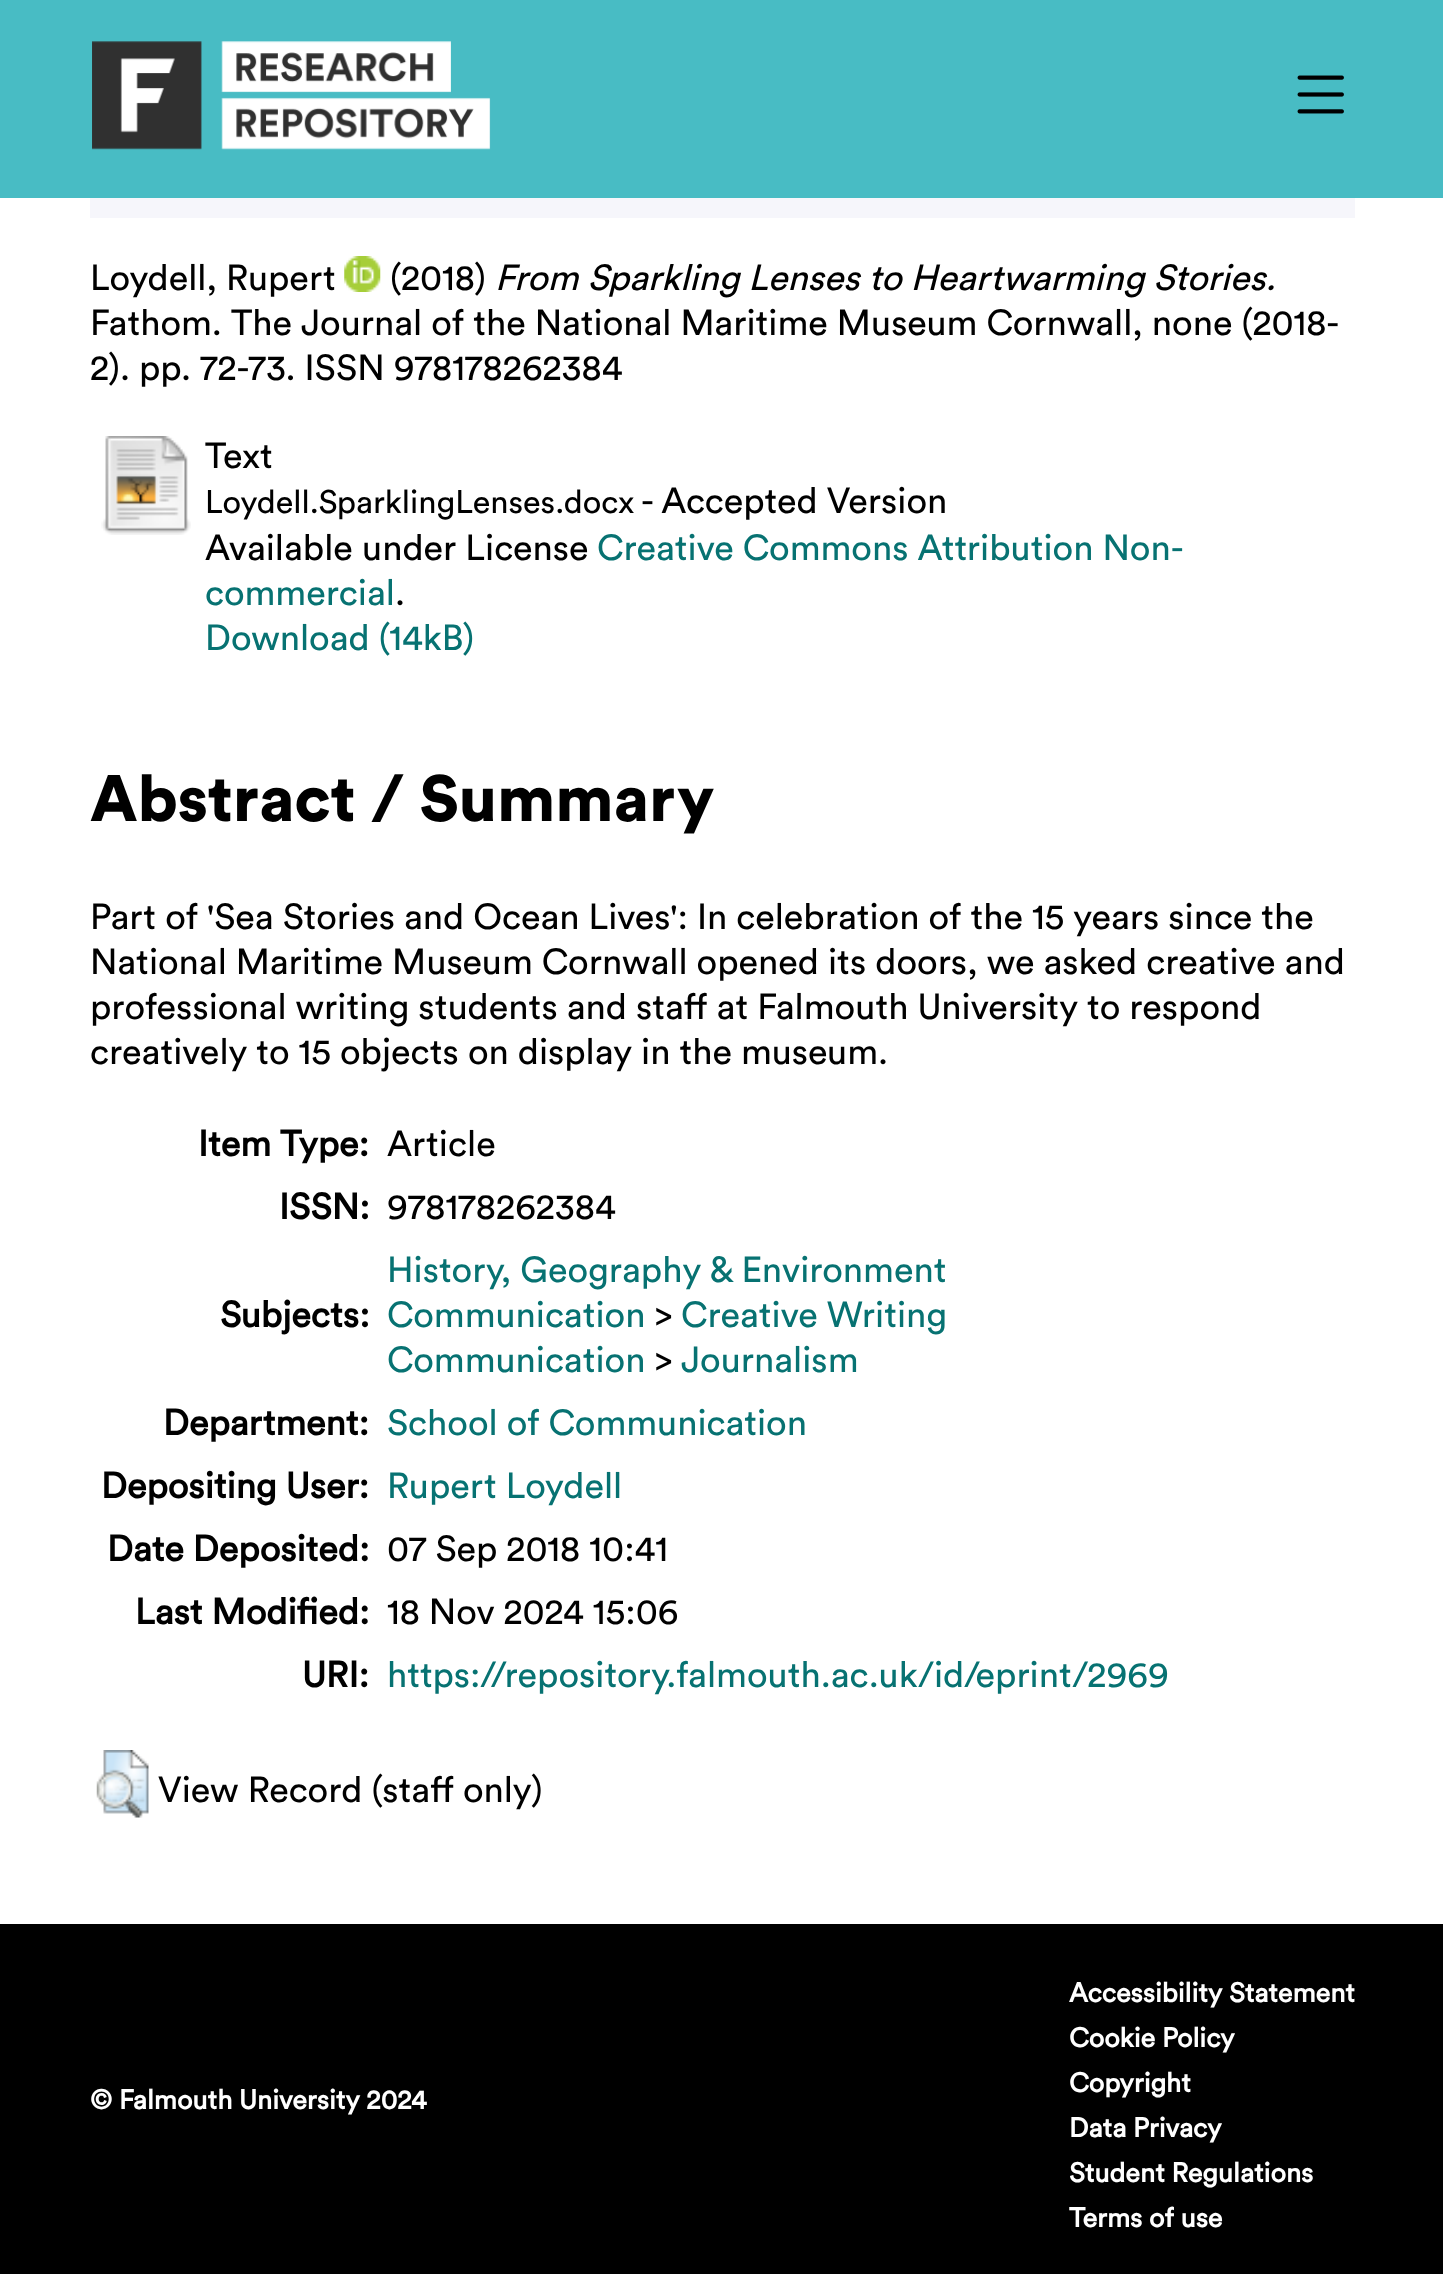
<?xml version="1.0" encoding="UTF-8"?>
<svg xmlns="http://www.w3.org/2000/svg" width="1443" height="2274">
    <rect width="100%" height="100%" fill="#FFFFFF"/>
    <rect x="0" y="0" width="1443" height="198" fill="#48BCC4"/>
    <image x="92" y="41" width="399" height="109" href="img_01.png"/>
    <image x="1297" y="75" width="47" height="39" href="img_02.png"/>
    <rect x="90" y="198" width="1265" height="20" fill="#F6F6FB"/>
    <text x="90" y="290" font-family="Circular" font-size="36" fill="#000000">Loydell, Rupert</text>
    <image x="344" y="256" width="37" height="36" href="img_03.png"/>
    <text x="390" y="290" font-family="Circular" font-size="36" fill="#000000">(2018)</text>
    <text x="495" y="290" font-family="Circular" font-size="36" font-style="italic" fill="#000000">From Sparkling Lenses to Heartwarming Stories.</text>
    <text font-family="Circular" font-size="36" fill="#000000">
        <tspan x="90" y="335">Fathom. The Journal of the National Maritime Museum Cornwall, none (2018-</tspan>
        <tspan x="90" y="380">2). pp. 72-73. ISSN 978178262384</tspan>
    </text>
    <image x="101" y="436" width="90" height="99" href="img_04.png"/>
    <text x="205" y="468" font-family="Circular" font-size="36" fill="#000000">Text</text>
    <text x="205" y="513" font-family="Circular" font-size="32.4" fill="#000000">Loydell.SparklingLenses.docx</text>
    <text x="641" y="513" font-family="Circular" font-size="36" fill="#000000">- Accepted Version</text>
    <text x="205" y="560" font-family="Circular" font-size="36" fill="#000000">Available under License</text>
    <text x="597" y="560" font-family="Circular" font-size="36" fill="#077272">Creative Commons Attribution Non-</text>
    <text x="205" y="605" font-family="Circular" font-size="36" fill="#077272">commercial</text>
    <text x="395" y="605" font-family="Circular" font-size="36" fill="#000000">.</text>
    <text x="205" y="650" font-family="Circular" font-size="36" fill="#077272">Download (14kB)</text>
    <text x="90" y="821" font-family="Circular" font-size="64.75" font-weight="900" fill="#000000">Abstract / Summary</text>
    <text font-family="Circular" font-size="36" fill="#000000">
        <tspan x="90" y="929">Part of 'Sea Stories and Ocean Lives': In celebration of the 15 years since the</tspan>
        <tspan x="90" y="974">National Maritime Museum Cornwall opened its doors, we asked creative and</tspan>
        <tspan x="90" y="1019">professional writing students and staff at Falmouth University to respond</tspan>
        <tspan x="90" y="1064">creatively to 15 objects on display in the museum.</tspan>
    </text>
    <text x="198" y="1156" font-family="Circular" font-size="36" font-weight="700" fill="#000000">Item Type:</text>
    <text x="387" y="1156" font-family="Circular" font-size="36" fill="#000000">Article</text>
    <text x="279" y="1219" font-family="Circular" font-size="36" font-weight="700" fill="#000000">ISSN:</text>
    <text x="387" y="1219" font-family="Circular" font-size="36" fill="#000000">978178262384</text>
    <text x="220" y="1327" font-family="Circular" font-size="36" font-weight="700" fill="#000000">Subjects:</text>
    <text font-family="Circular" font-size="36" fill="#077272">
        <tspan x="387" y="1282">History, Geography &amp; Environment</tspan>
        <tspan x="387" y="1327">Communication</tspan>
    </text>
    <text x="655" y="1327" font-family="Circular" font-size="36" fill="#000000">&gt;</text>
    <text x="681" y="1327" font-family="Circular" font-size="36" fill="#077272">Creative Writing</text>
    <text x="387" y="1372" font-family="Circular" font-size="36" fill="#077272">Communication</text>
    <text x="655" y="1372" font-family="Circular" font-size="36" fill="#000000">&gt;</text>
    <text x="681" y="1372" font-family="Circular" font-size="36" fill="#077272">Journalism</text>
    <text x="163" y="1435" font-family="Circular" font-size="36" font-weight="700" fill="#000000">Department:</text>
    <text x="387" y="1435" font-family="Circular" font-size="36" fill="#077272">School of Communication</text>
    <text x="101" y="1498" font-family="Circular" font-size="36" font-weight="700" fill="#000000">Depositing User:</text>
    <text x="387" y="1498" font-family="Circular" font-size="36" fill="#077272">Rupert Loydell</text>
    <text x="107" y="1561" font-family="Circular" font-size="36" font-weight="700" fill="#000000">Date Deposited:</text>
    <text x="387" y="1561" font-family="Circular" font-size="36" fill="#000000">07 Sep 2018 10:41</text>
    <text x="135" y="1624" font-family="Circular" font-size="36" font-weight="700" fill="#000000">Last Modified:</text>
    <text x="387" y="1624" font-family="Circular" font-size="36" fill="#000000">18 Nov 2024 15:06</text>
    <text x="302" y="1687" font-family="Circular" font-size="36" font-weight="700" fill="#000000">URI:</text>
    <text x="387" y="1687" font-family="Circular" font-size="36" fill="#077272">https://repository.falmouth.ac.uk/id/eprint/2969</text>
    <image x="96" y="1750" width="53" height="68" href="img_05.png"/>
    <text x="158" y="1802" font-family="Circular" font-size="36" fill="#000000">View Record (staff only)</text>
    <rect x="0" y="1924" width="1443" height="350" fill="#000000"/>
    <text x="90" y="2109" font-family="Circular" font-size="27" font-weight="700" fill="#FFFFFF">© Falmouth University 2024</text>
    <text font-family="Circular" font-size="27" font-weight="700" fill="#FFFFFF">
        <tspan x="1069" y="2002">Accessibility Statement</tspan>
        <tspan x="1069" y="2047">Cookie Policy</tspan>
        <tspan x="1069" y="2092">Copyright</tspan>
        <tspan x="1069" y="2137">Data Privacy</tspan>
        <tspan x="1069" y="2182">Student Regulations</tspan>
        <tspan x="1069" y="2227">Terms of use</tspan>
    </text>
</svg>
